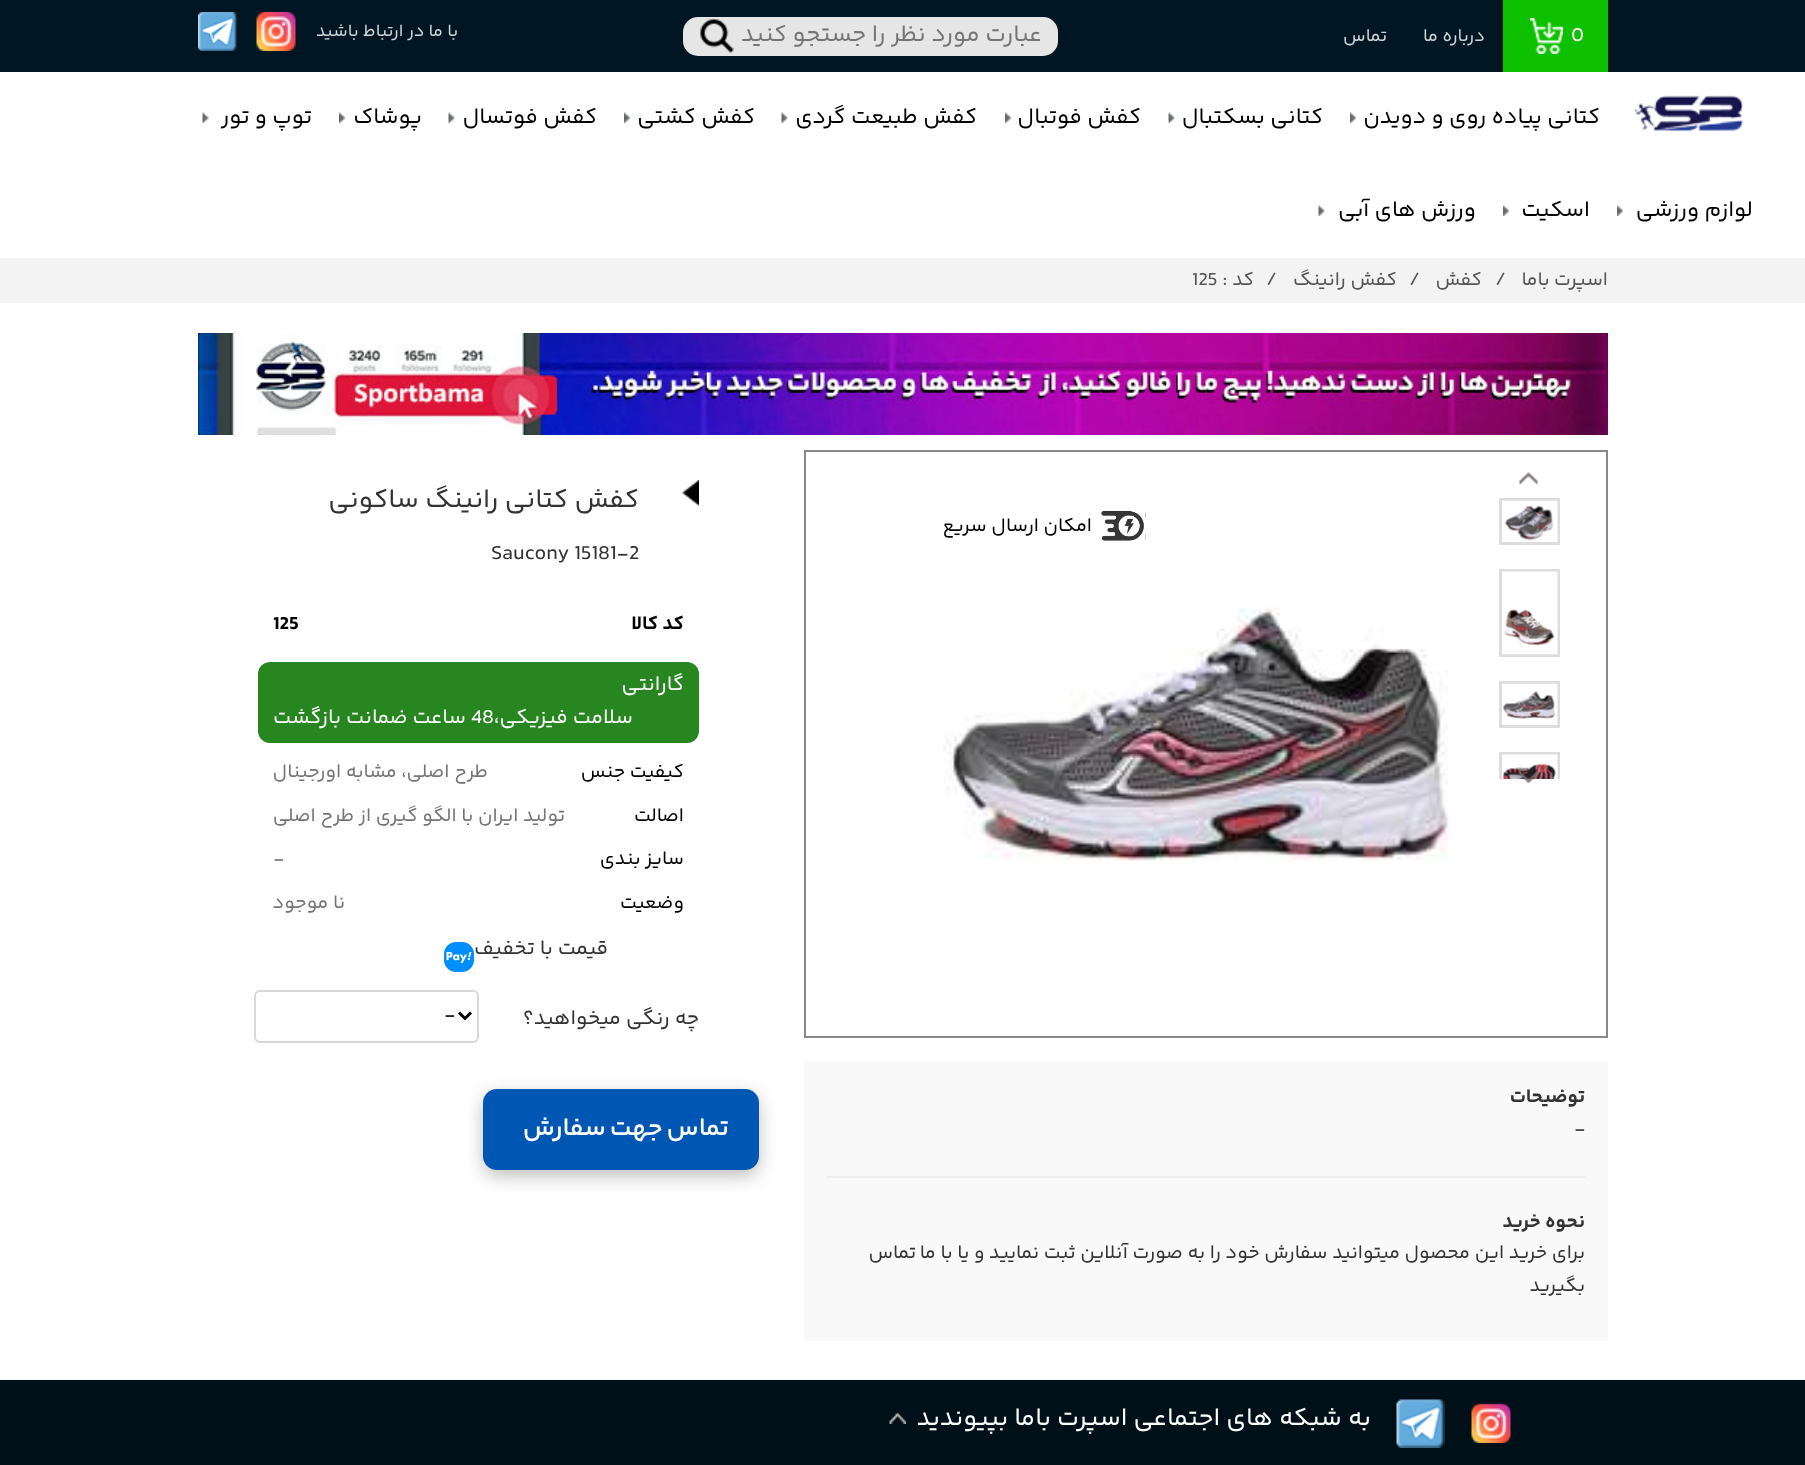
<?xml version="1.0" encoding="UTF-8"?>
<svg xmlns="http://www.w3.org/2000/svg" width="1805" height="1465">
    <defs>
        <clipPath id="clip1"><rect x="1497" y="497" width="65" height="282"/></clipPath>
        <filter id="blur1" x="-50%" y="-200%" width="200%" height="500%"><feGaussianBlur stdDeviation="9"/></filter>
    </defs>
    <rect width="100%" height="100%" fill="#FFFFFF"/>
    <rect x="0" y="0" width="1805" height="72" fill="#001723"/>
    <rect x="1503" y="0" width="105" height="72" fill="#0EC100"/>
    <text x="1571" y="41" font-family="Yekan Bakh" font-size="21" fill="#FFFFFF">0</text>
    <image x="1530" y="18" width="33" height="36" href="img_01.png"/>
    <text x="1485" y="41" font-family="Yekan Bakh" font-size="18" direction="rtl" fill="#D1D5D7">درباره ما</text>
    <text x="1387" y="41" font-family="Yekan Bakh" font-size="18" direction="rtl" fill="#D1D5D7">تماس</text>
    <rect x="684" y="18" width="373" height="37" rx="14" fill="#E6E6E6" stroke="#E6E6E6" stroke-width="2"/>
    <text x="1042" y="41" font-family="Yekan Bakh" font-size="24" direction="rtl" fill="#757575">عبارت مورد نظر را جستجو کنید</text>
    <image x="700" y="19" width="34" height="34" href="img_02.png"/>
    <text x="458" y="36" font-family="Yekan Bakh" font-size="17.5" direction="rtl" fill="#D1D5D7">با ما در ارتباط باشید</text>
    <image x="256" y="12" width="40" height="39" href="img_03.png"/>
    <image x="198" y="12" width="39" height="39" href="img_04.png"/>
    <image x="1634" y="95" width="110" height="37" href="img_05.png"/>
    <text x="1600" y="123" font-family="Yekan Bakh" font-size="22.5" direction="rtl" fill="#000000">کتانی پیاده روی و دویدن</text>
    <image x="1350" y="112" width="6" height="11" href="img_06.png"/>
    <text x="1323" y="123" font-family="Yekan Bakh" font-size="22.5" direction="rtl" fill="#000000">کتانی بسکتبال</text>
    <image x="1168" y="112" width="7" height="11" href="img_07.png"/>
    <text x="1141" y="123" font-family="Yekan Bakh" font-size="22.5" direction="rtl" fill="#000000">کفش فوتبال</text>
    <image x="1005" y="112" width="6" height="11" href="img_08.png"/>
    <text x="977" y="123" font-family="Yekan Bakh" font-size="22.5" direction="rtl" fill="#000000">کفش طبیعت گردی</text>
    <image x="781" y="112" width="7" height="11" href="img_09.png"/>
    <text x="755" y="123" font-family="Yekan Bakh" font-size="22.5" direction="rtl" fill="#000000">کفش کشتی</text>
    <image x="624" y="112" width="6" height="11" href="img_08.png"/>
    <text x="597" y="123" font-family="Yekan Bakh" font-size="22.5" direction="rtl" fill="#000000">کفش فوتسال</text>
    <image x="448" y="112" width="7" height="11" href="img_09.png"/>
    <text x="422" y="123" font-family="Yekan Bakh" font-size="22.5" direction="rtl" fill="#000000">پوشاک</text>
    <image x="339" y="112" width="6" height="11" href="img_06.png"/>
    <text x="312" y="123" font-family="Yekan Bakh" font-size="22.5" direction="rtl" fill="#000000">توپ و تور</text>
    <image x="202" y="112" width="7" height="11" href="img_09.png"/>
    <text x="1753" y="216" font-family="Yekan Bakh" font-size="22.5" direction="rtl" fill="#000000">لوازم ورزشی</text>
    <image x="1617" y="205" width="6" height="11" href="img_08.png"/>
    <text x="1590" y="216" font-family="Yekan Bakh" font-size="22.5" direction="rtl" fill="#000000">اسکیت</text>
    <image x="1503" y="205" width="6" height="11" href="img_06.png"/>
    <text x="1476" y="216" font-family="Yekan Bakh" font-size="22.5" direction="rtl" fill="#000000">ورزش های آبی</text>
    <image x="1318" y="205" width="7" height="11" href="img_07.png"/>
    <rect x="0" y="258" width="1805" height="45" fill="#F3F3F3"/>
    <text x="1608" y="285" font-family="Yekan Bakh" font-size="19.5" direction="rtl" fill="#545454">اسپرت باما</text>
    <text x="1495" y="285" font-family="Yekan Bakh" font-size="19.5" fill="#545454">/</text>
    <text x="1482" y="285" font-family="Yekan Bakh" font-size="19.5" direction="rtl" fill="#545454">کفش</text>
    <text x="1409" y="285" font-family="Yekan Bakh" font-size="19.5" fill="#545454">/</text>
    <text x="1397" y="285" font-family="Yekan Bakh" font-size="19.5" direction="rtl" fill="#545454">کفش رانینگ</text>
    <text x="1266" y="285" font-family="Yekan Bakh" font-size="19.5" fill="#545454">/</text>
    <text x="1254" y="285" font-family="Yekan Bakh" font-size="19.5" direction="rtl" fill="#545454">کد :</text>
    <text x="1192" y="285" font-family="Yekan Bakh" font-size="19.5" fill="#545454">125</text>
    <image x="198" y="333" width="1410" height="102" href="img_10.png"/>
    <rect x="805" y="451" width="802" height="586" fill="none" stroke="#888888" stroke-width="2"/>
    <image x="1519" y="472" width="19" height="13" href="img_11.png"/>
    <rect x="1500.5" y="499.5" width="58" height="44" fill="none" stroke="#DDDDDD" stroke-width="3"/>
    <image x="1502" y="500" width="56" height="42" href="img_12.png"/>
    <rect x="1500.5" y="570.5" width="58" height="85" fill="none" stroke="#DDDDDD" stroke-width="3"/>
    <image x="1502" y="571" width="56" height="84" href="img_13.png"/>
    <rect x="1500.5" y="682.5" width="58" height="44" fill="none" stroke="#DDDDDD" stroke-width="3"/>
    <image x="1502" y="683" width="56" height="42" href="img_14.png"/>
    <g clip-path="url(#clip1)">
        <rect x="1500.5" y="753.5" width="58" height="42" fill="none" stroke="#DDDDDD" stroke-width="3"/>
    </g>
    <image x="1502" y="754" width="56" height="25" href="img_15.png"/>
    <image x="1519" y="771" width="19" height="12" href="img_16.png"/>
    <image x="1101" y="510" width="45" height="31" href="img_17.png"/>
    <text x="1092" y="531" font-family="Yekan Bakh" font-size="19.5" direction="rtl" fill="#000000">امکان ارسال سریع</text>
    <image x="943" y="607" width="506" height="254" href="img_18.png"/>
    <rect x="804" y="1061" width="804" height="280" fill="#F9F9F9"/>
    <text x="1585" y="1102" font-family="Yekan Bakh" font-size="19.5" font-weight="700" direction="rtl" fill="#333333">توضیحات</text>
    <text x="1574" y="1134" font-family="Yekan Bakh" font-size="19.5" fill="#333333">-</text>
    <rect x="827" y="1176" width="759" height="2" fill="#EEEEEE"/>
    <text x="1585" y="1227" font-family="Yekan Bakh" font-size="19.5" font-weight="700" direction="rtl" fill="#333333">نحوه خرید</text>
    <text x="1585" y="1258" font-family="Yekan Bakh" font-size="19.5" direction="rtl" fill="#333333">برای خرید این محصول میتوانید سفارش خود را به صورت آنلاین ثبت نمایید و یا با ما</text>
    <text x="916" y="1258" font-family="Yekan Bakh" font-size="19.5" direction="rtl" fill="#333333">تماس</text>
    <text x="1585" y="1291" font-family="Yekan Bakh" font-size="19.5" direction="rtl" fill="#333333">بگیرید</text>
    <image x="682" y="480" width="17" height="26" href="img_19.png"/>
    <text x="639" y="507" font-family="Yekan Bakh" font-size="27" direction="rtl" fill="#333333">کفش کتانی رانینگ ساکونی</text>
    <text x="491" y="559" font-family="Yekan Bakh" font-size="21" fill="#333333">Saucony 15181-2</text>
    <text x="684" y="629" font-family="Yekan Bakh" font-size="19.5" font-weight="700" direction="rtl" fill="#000000">کد کالا</text>
    <text x="273" y="629" font-family="Yekan Bakh" font-size="19.5" font-weight="700" fill="#000000">125</text>
    <rect x="258" y="662" width="441" height="81" rx="12" fill="#288621"/>
    <text x="684" y="690" font-family="Yekan Bakh" font-size="21" direction="rtl" fill="#FFFFFF">گارانتی</text>
    <text x="633" y="723" font-family="Yekan Bakh" font-size="21" direction="rtl" fill="#FFFFFF">سلامت فیزیکی،</text>
    <text x="471" y="723" font-family="Yekan Bakh" font-size="21" fill="#FFFFFF">48</text>
    <text x="466" y="723" font-family="Yekan Bakh" font-size="21" direction="rtl" fill="#FFFFFF">ساعت ضمانت بازگشت</text>
    <text x="684" y="777" font-family="Yekan Bakh" font-size="19.5" direction="rtl" fill="#000000">کیفیت جنس</text>
    <text x="488" y="777" font-family="Yekan Bakh" font-size="19.5" direction="rtl" fill="#757575">طرح اصلی، مشابه اورجینال</text>
    <text x="684" y="821" font-family="Yekan Bakh" font-size="19.5" direction="rtl" fill="#000000">اصالت</text>
    <text x="565" y="821" font-family="Yekan Bakh" font-size="19.5" direction="rtl" fill="#757575">تولید ایران با الگو گیری از طرح اصلی</text>
    <text x="684" y="864" font-family="Yekan Bakh" font-size="19.5" direction="rtl" fill="#000000">سایز بندی</text>
    <text x="273" y="864" font-family="Yekan Bakh" font-size="19.5" fill="#757575">-</text>
    <text x="684" y="908" font-family="Yekan Bakh" font-size="19.5" direction="rtl" fill="#000000">وضعیت</text>
    <text x="345" y="908" font-family="Yekan Bakh" font-size="19.5" direction="rtl" fill="#757575">نا موجود</text>
    <text x="608" y="954" font-family="Yekan Bakh" font-size="21" direction="rtl" fill="#333333">قیمت با تخفیف</text>
    <image x="444" y="942" width="30" height="30" href="img_20.png"/>
    <text x="699" y="1024" font-family="Yekan Bakh" font-size="21" direction="rtl" fill="#333333">چه رنگی میخواهید؟</text>
    <rect x="255" y="991" width="223" height="51" rx="5" fill="none" stroke="#D8D8D8" stroke-width="2"/>
    <path d="M 459 1012.5 L 465 1018.5 L 471 1012.5" fill="none" stroke="#000000" stroke-width="3"/>
    <text x="444" y="1020" font-family="Yekan Bakh" font-size="19.5" fill="#000000">-</text>
    <rect x="483" y="1095" width="276" height="81" rx="14" fill="#000000" fill-opacity="0.25" filter="url(#blur1)"/>
    <rect x="483" y="1089" width="276" height="81" rx="14" fill="#0056B3"/>
    <text x="729" y="1135" word-spacing="-2" font-family="Yekan Bakh" font-size="25.5" font-weight="600" letter-spacing="0.5" direction="rtl" fill="#FFFFFF">تماس جهت سفارش</text>
    <rect x="0" y="1379" width="1805" height="1" fill="#F8F8F8"/>
    <rect x="0" y="1380" width="1805" height="85" fill="#001018"/>
    <image x="1471" y="1403" width="40" height="40" href="img_21.png"/>
    <image x="1396" y="1399" width="49" height="49" href="img_22.png"/>
    <text x="1371" y="1425" font-family="Yekan Bakh" font-size="25.5" direction="rtl" fill="#FFFFFF">به شبکه های اجتماعی اسپرت باما بپیوندید</text>
    <image x="889" y="1413" width="17" height="11" href="img_23.png"/>
</svg>
